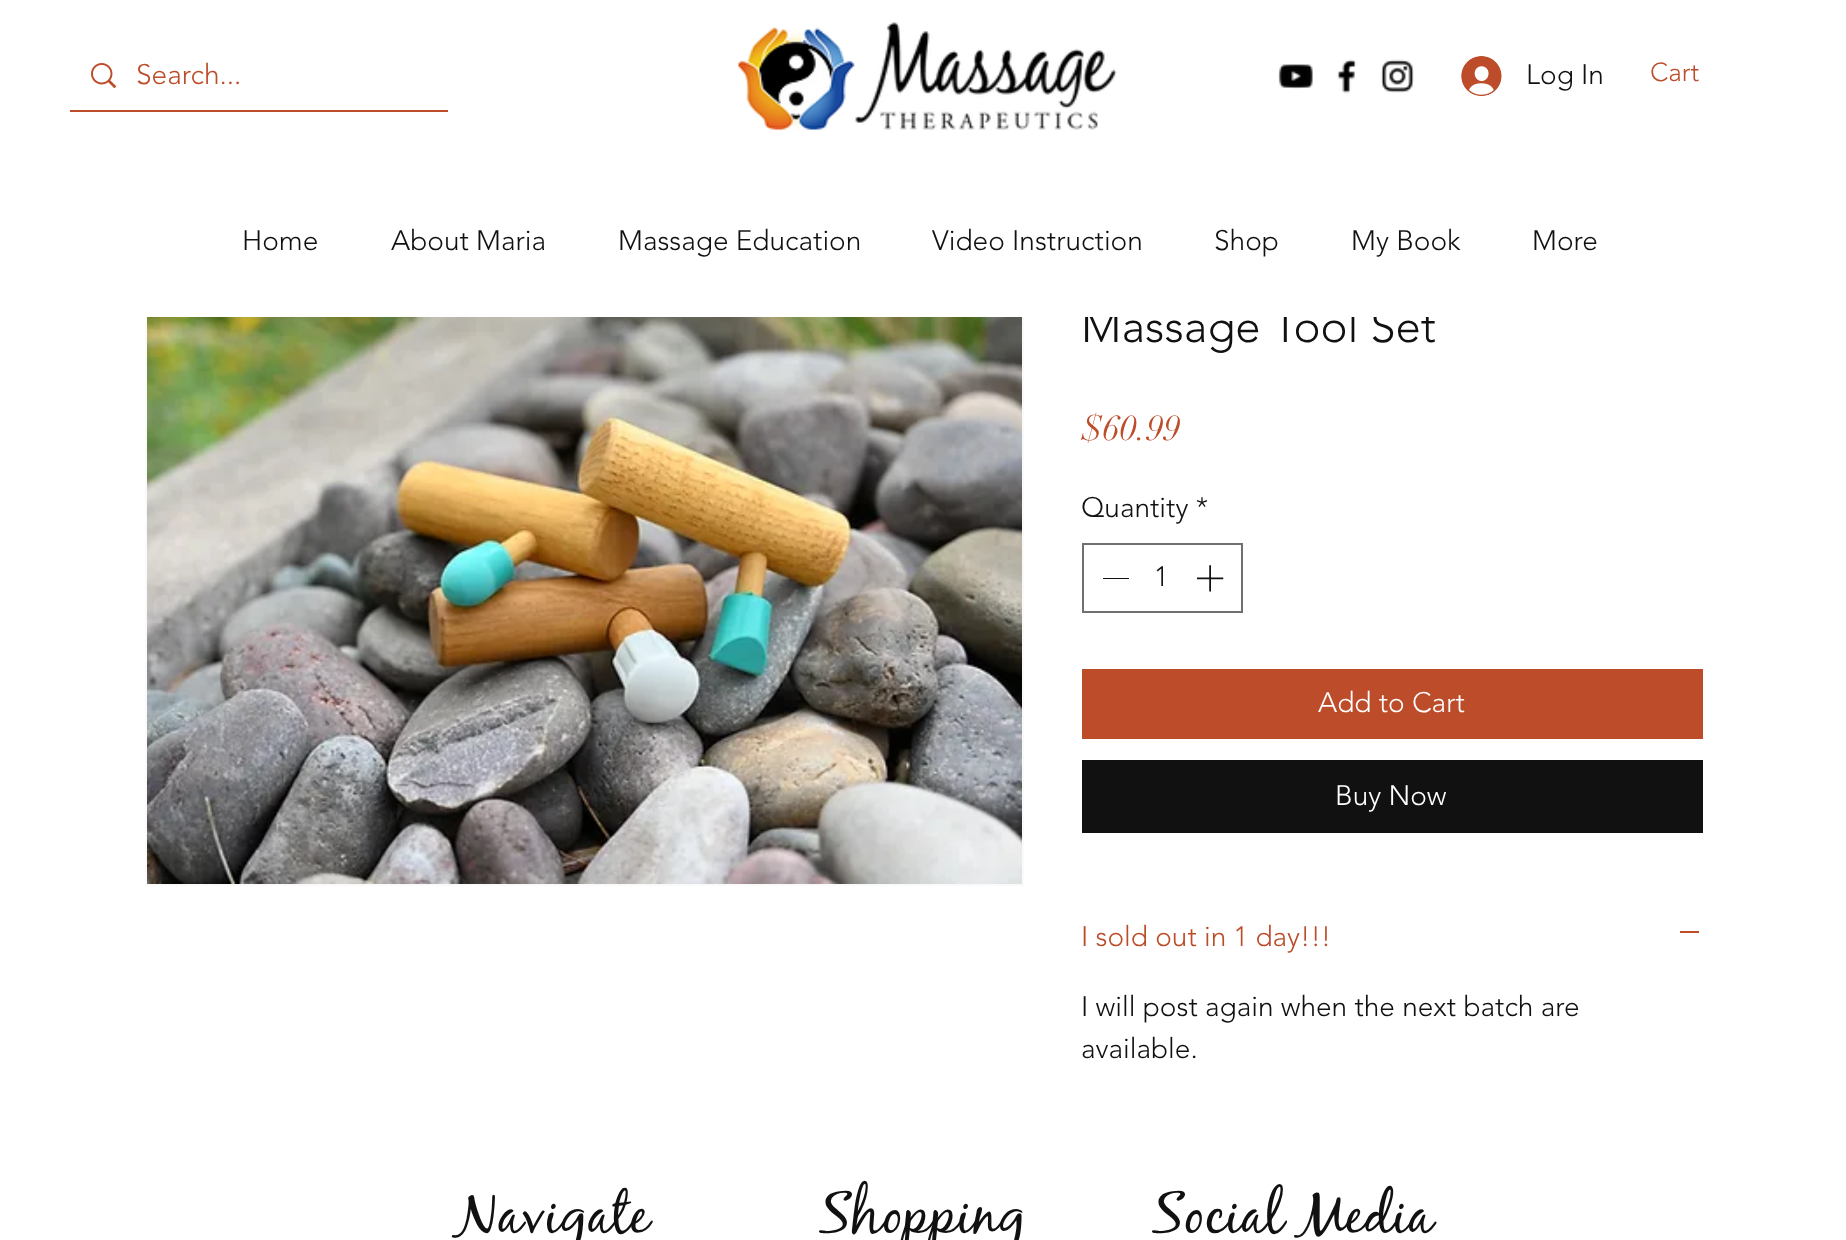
<?xml version="1.0" encoding="UTF-8"?>
<svg xmlns="http://www.w3.org/2000/svg" width="1846" height="1240">
    <rect width="100%" height="100%" fill="#FFFFFF"/>
    <rect x="70" y="110" width="378" height="2" fill="#BC4C2A"/>
    <image x="91" y="63" width="25" height="25" href="img_01.png"/>
    <text x="136" y="84" font-family="'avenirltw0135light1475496'" font-size="28" font-weight="300" fill="#BC4C2A">Search...</text>
    <image x="736" y="22" width="381" height="110" href="img_02.png"/>
    <image x="1278" y="64" width="35" height="25" href="img_03.png"/>
    <image x="1337" y="59" width="20" height="35" href="img_04.png"/>
    <image x="1380" y="59" width="34" height="34" href="img_05.png"/>
    <image x="1461" y="56" width="41" height="40" href="img_06.png"/>
    <text x="1526" y="84" font-family="'avenirltw0135light1475496'" font-size="28" font-weight="300" fill="#111111">Log In</text>
    <text x="1650" y="81" font-family="'avenirltw0135light1475496'" font-size="26" font-weight="300" fill="#BC4C2A">Cart</text>
    <text x="242" y="250" font-family="'avenirltw0135light1475496'" font-size="28" font-weight="300" fill="#111111">Home</text>
    <text x="391" y="250" font-family="'avenirltw0135light1475496'" font-size="28" font-weight="300" fill="#111111">About Maria</text>
    <text x="618" y="250" font-family="'avenirltw0135light1475496'" font-size="28" font-weight="300" fill="#111111">Massage Education</text>
    <text x="932" y="250" font-family="'avenirltw0135light1475496'" font-size="28" font-weight="300" fill="#111111">Video Instruction</text>
    <text x="1214" y="250" font-family="'avenirltw0135light1475496'" font-size="28" font-weight="300" fill="#111111">Shop</text>
    <text x="1351" y="250" font-family="'avenirltw0135light1475496'" font-size="28" font-weight="300" fill="#111111">My Book</text>
    <text x="1532" y="250" font-family="'avenirltw0135light1475496'" font-size="28" font-weight="300" fill="#111111">More</text>
    <rect x="146" y="300" width="877" height="585" fill="none" stroke="#FAFAFA" stroke-width="2"/>
    <text x="1081" y="342" font-family="'avenirltw0135light1475496'" font-size="45.5" font-weight="300" fill="#111111">Massage Tool Set</text>
    <rect x="145" y="299" width="1284" height="18" fill="#FFFFFF"/>
    <image x="147" y="317" width="875" height="567" href="img_07.png"/>
    <text x="1081" y="440" font-family="didot" font-size="35" fill="#BC4C2A">$60.99</text>
    <text x="1081" y="517" font-family="'avenirltw0135light1475496'" font-size="28" font-weight="300" fill="#111111">Quantity *</text>
    <rect x="1083" y="544" width="159" height="68" fill="none" stroke="#707070" stroke-width="2"/>
    <rect x="1103" y="578" width="26" height="1" fill="#111111"/>
    <text x="1154" y="586" font-family="'avenirltw0135light1475496'" font-size="28" font-weight="300" fill="#111111">1</text>
    <image x="1197" y="565" width="27" height="27" href="img_08.png"/>
    <rect x="1082" y="669" width="621" height="70" fill="#BC4C2A"/>
    <text x="1318" y="712" font-family="'avenirltw0135light1475496'" font-size="28" font-weight="300" fill="#FFFFFF">Add to Cart</text>
    <rect x="1082" y="760" width="621" height="73" fill="#111111"/>
    <text x="1335" y="805" font-family="'avenirltw0135light1475496'" font-size="28" font-weight="300" fill="#FFFFFF">Buy Now</text>
    <text x="1081" y="946" font-family="'avenirltw0135light1475496'" font-size="28" font-weight="300" fill="#BC4C2A">I sold out in 1 day!!!</text>
    <rect x="1680" y="931" width="19" height="2" fill="#BC4C2A"/>
    <text font-family="'avenirltw0135light1475496'" font-size="28" font-weight="300" fill="#111111">
        <tspan x="1081" y="1016">I will post again when the next batch are</tspan>
        <tspan x="1081" y="1058">available.</tspan>
    </text>
    <text x="455" y="1232" font-family="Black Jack" font-size="57.75" font-weight="900" fill="#111111">Navigate</text>
    <text x="819" y="1232" font-family="Black Jack" font-size="57.75" font-weight="900" fill="#111111">Shopping</text>
    <text x="1152" y="1232" font-family="Black Jack" font-size="57.75" font-weight="900" fill="#111111">Social Media</text>
</svg>
